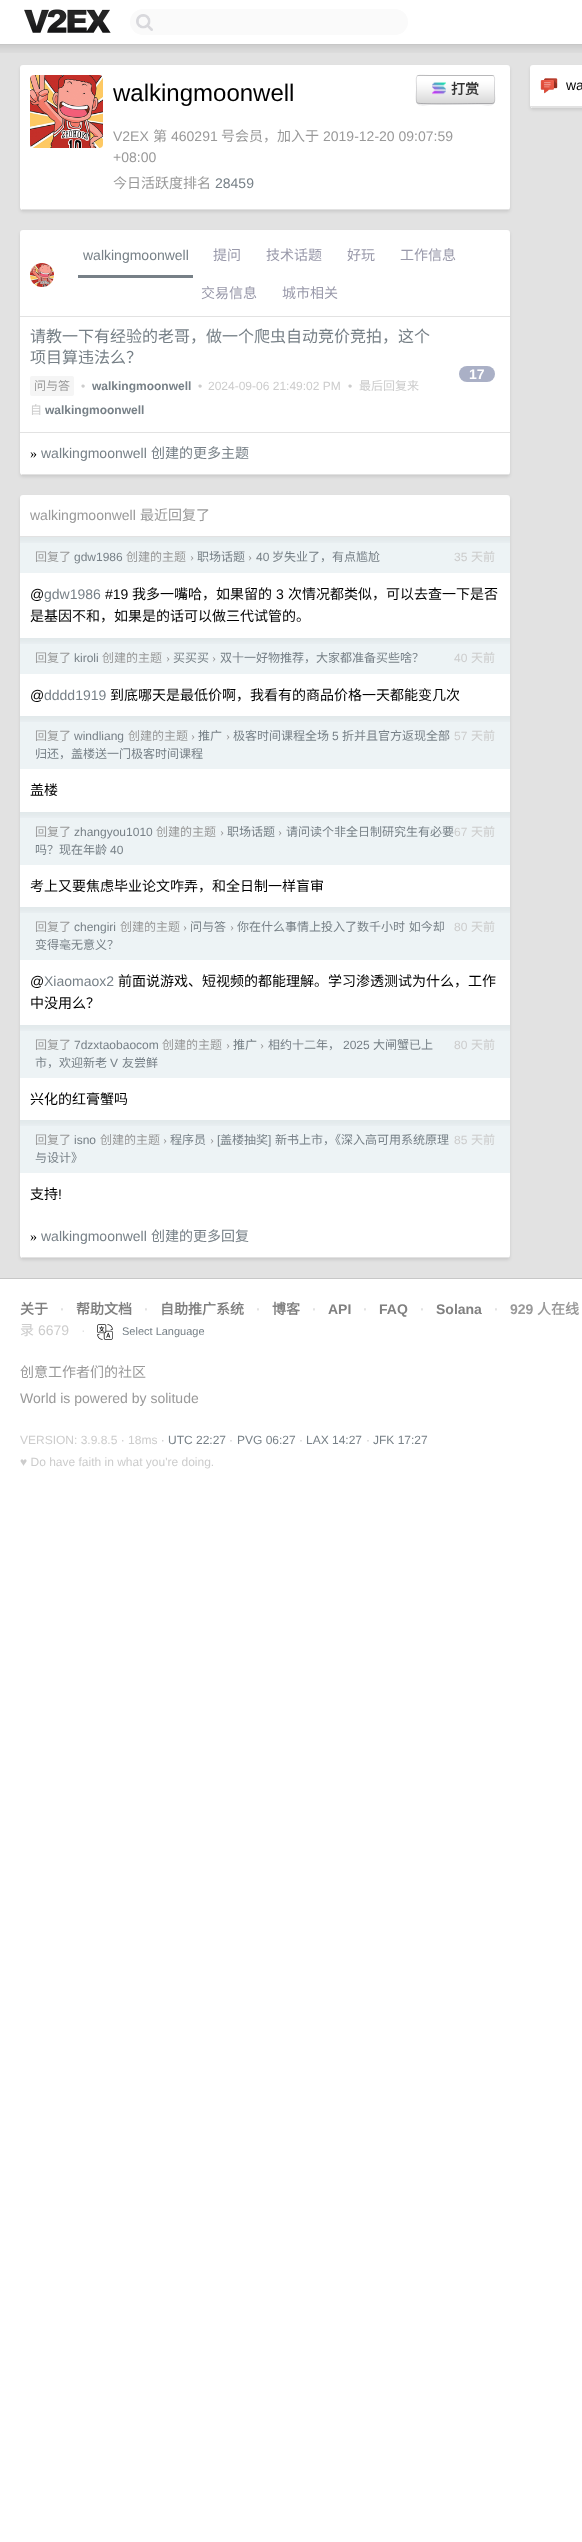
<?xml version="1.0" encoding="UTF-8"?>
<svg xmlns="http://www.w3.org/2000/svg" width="582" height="2542">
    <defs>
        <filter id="blur1" x="-50%" y="-200%" width="200%" height="500%"><feGaussianBlur stdDeviation="1.5"/></filter>
    </defs>
    <rect width="100%" height="100%" fill="#FFFFFF"/>
    <rect x="0" y="44" width="582" height="1" fill="#C7C7C7"/>
    <image x="24" y="9" width="87" height="24" href="img_01.png"/>
    <rect x="130" y="9" width="278" height="26" rx="13" fill="#FAFAFA"/>
    <image x="136" y="14" width="17" height="17" href="img_02.png"/>
    <rect x="0" y="45" width="582" height="1233" fill="#E2E2E2"/>
    <image x="0" y="45" width="582" height="8" href="img_03.png"/>
    <rect x="20" y="67" width="490" height="145" rx="3" fill="#000000" fill-opacity="0.1" filter="url(#blur1)"/>
    <rect x="20" y="65" width="490" height="145" rx="3" fill="#FFFFFF"/>
    <rect x="22" y="209" width="487" height="1" fill="#E2E2E2"/>
    <image x="30" y="75" width="73" height="73" href="img_04.png"/>
    <text x="113" y="101" font-family="Liberation Sans" font-size="24" fill="#000000">walkingmoonwell</text>
    <path d="M 416 101 C 416 108 427 105 431 105 H 480 C 484 105 495 108 495 101 C 495 103 494 104 492 104 H 419 C 417 104 416 103 416 101 Z" fill="#ECECED"/>
    <rect x="416" y="75" width="79" height="29" rx="3" fill="#FFFFFF"/>
    <image x="416" y="75" width="79" height="29" href="img_05.png"/>
    <path d="M 494 103 L 492 103.5 H 480 C 473 103.5 419.5 104.5 417.5 103 H 417" fill="none" stroke="#50505A" stroke-opacity="0.35"/>
    <path d="M 417 103 C 415.5 101 416.5 92 416.5 89.5 C 416.5 72.5 413.5 75.5 431 75.5 H 492 C 495.5 75.5 494.5 80 494.5 82 V 93.5 C 494.5 95.5 495.5 101 494 103" fill="none" stroke="#50505A" stroke-opacity="0.2"/>
    <image x="432" y="82" width="14" height="13" href="img_06.png"/>
    <text x="451" y="94" font-family="Noto Sans CJK SC" font-size="14" font-weight="700" fill="#333333">打赏</text>
    <text x="113" y="141" font-family="Liberation Sans" font-size="14" fill="#999999">V2EX</text>
    <text x="153" y="141" font-family="Noto Sans CJK SC" font-size="14" fill="#999999">第</text>
    <text x="171" y="141" font-family="Liberation Sans" font-size="14" fill="#999999">460291</text>
    <text x="221" y="141" font-family="Noto Sans CJK SC" font-size="14" fill="#999999">号会员，加入于</text>
    <text x="323" y="141" font-family="Liberation Sans" font-size="14" fill="#999999">2019-12-20 09:07:59</text>
    <text x="113" y="162" font-family="Liberation Sans" font-size="14" fill="#999999">+08:00</text>
    <text x="113" y="188" font-family="Noto Sans CJK SC" font-size="14" fill="#999999">今日活跃度排名</text>
    <text x="215" y="188" font-family="Liberation Sans" font-size="14" fill="#778087">28459</text>
    <rect x="20" y="232" width="490" height="245" rx="3" fill="#000000" fill-opacity="0.1" filter="url(#blur1)"/>
    <rect x="20" y="230" width="490" height="245" rx="3" fill="#FFFFFF"/>
    <rect x="22" y="474" width="487" height="1" fill="#E2E2E2"/>
    <rect x="20" y="316" width="490" height="1" fill="#E2E2E2"/>
    <image x="30" y="263" width="24" height="24" href="img_07.png"/>
    <rect x="78" y="275" width="115" height="3" fill="#778087"/>
    <text x="83" y="260" font-family="Liberation Sans" font-size="14" fill="#778087">walkingmoonwell</text>
    <text x="213" y="260" font-family="Noto Sans CJK SC" font-size="14" fill="#9999AA">提问</text>
    <text x="266" y="260" font-family="Noto Sans CJK SC" font-size="14" fill="#9999AA">技术话题</text>
    <text x="347" y="260" font-family="Noto Sans CJK SC" font-size="14" fill="#9999AA">好玩</text>
    <text x="400" y="260" font-family="Noto Sans CJK SC" font-size="14" fill="#9999AA">工作信息</text>
    <text x="201" y="298" font-family="Noto Sans CJK SC" font-size="14" fill="#9999AA">交易信息</text>
    <text x="282" y="298" font-family="Noto Sans CJK SC" font-size="14" fill="#9999AA">城市相关</text>
    <rect x="20" y="432" width="490" height="1" fill="#E2E2E2"/>
    <text font-family="Noto Sans CJK SC" font-size="16" fill="#778087">
        <tspan x="30" y="342">请教一下有经验的老哥，做一个爬虫自动竞价竞拍，这个</tspan>
        <tspan x="30" y="363">项目算违法么？</tspan>
    </text>
    <rect x="30" y="376" width="44" height="20" rx="2" fill="#F5F5F5"/>
    <text x="34" y="390" font-family="Noto Sans CJK SC" font-size="12" fill="#999999">问与答</text>
    <text x="81" y="390" font-family="Liberation Sans" font-size="12" fill="#CCCCCC">•</text>
    <text x="92" y="390" font-family="Liberation Sans" font-size="12" font-weight="700" fill="#778087">walkingmoonwell</text>
    <text x="198" y="390" font-family="Liberation Sans" font-size="12" fill="#CCCCCC">•</text>
    <text x="208" y="390" font-family="Liberation Sans" font-size="12" fill="#CCCCCC">2024-09-06 21:49:02 PM</text>
    <text x="348" y="390" font-family="Liberation Sans" font-size="12" fill="#CCCCCC">•</text>
    <text x="359" y="390" font-family="Noto Sans CJK SC" font-size="12" fill="#CCCCCC">最后回复来</text>
    <text x="30" y="414" font-family="Noto Sans CJK SC" font-size="12" fill="#CCCCCC">自</text>
    <text x="45" y="414" font-family="Liberation Sans" font-size="12" font-weight="700" fill="#778087">walkingmoonwell</text>
    <rect x="459" y="366" width="36" height="16" rx="8" fill="#AAB0C6"/>
    <text x="469" y="379" font-family="Liberation Sans" font-size="14" font-weight="700" fill="#FFFFFF">17</text>
    <text x="30" y="458" font-family="Liberation Serif" font-size="14" fill="#000000">»</text>
    <text x="41" y="458" font-family="Liberation Sans" font-size="14" fill="#778087">walkingmoonwell</text>
    <text x="151" y="458" font-family="Noto Sans CJK SC" font-size="14" fill="#778087">创建的更多主题</text>
    <rect x="20" y="497" width="490" height="763" rx="3" fill="#000000" fill-opacity="0.1" filter="url(#blur1)"/>
    <rect x="20" y="495" width="490" height="763" rx="3" fill="#FFFFFF"/>
    <rect x="22" y="1257" width="487" height="1" fill="#E2E2E2"/>
    <rect x="20" y="536" width="490" height="1" fill="#E2E2E2"/>
    <text x="30" y="520" font-family="Liberation Sans" font-size="14" fill="#999999">walkingmoonwell</text>
    <text x="140" y="520" font-family="Noto Sans CJK SC" font-size="14" fill="#999999">最近回复了</text>
    <rect x="20" y="537" width="490" height="36" fill="#EDF3F5"/>
    <image x="20" y="537" width="490" height="6" href="img_08.png"/>
    <text x="35" y="561" font-family="Noto Sans CJK SC" font-size="12" fill="#999999">回复了</text>
    <text x="74" y="561" font-family="Liberation Sans" font-size="12" fill="#778087">gdw1986</text>
    <text x="126" y="561" font-family="Noto Sans CJK SC" font-size="12" fill="#999999">创建的主题</text>
    <text x="190" y="561" font-family="Liberation Serif" font-size="12" fill="#999999">›</text>
    <text x="197" y="561" font-family="Noto Sans CJK SC" font-size="12" fill="#778087">职场话题</text>
    <text x="248" y="561" font-family="Liberation Serif" font-size="12" fill="#999999">›</text>
    <text x="256" y="561" font-family="Liberation Sans" font-size="12" fill="#778087">40</text>
    <text x="272" y="561" font-family="Noto Sans CJK SC" font-size="12" fill="#778087">岁失业了，有点尴尬</text>
    <text x="454" y="561" font-family="Liberation Sans" font-size="12" fill="#CCCCCC">35</text>
    <text x="471" y="561" font-family="Noto Sans CJK SC" font-size="12" fill="#CCCCCC">天前</text>
    <text x="30" y="599" font-family="Liberation Sans" font-size="14" fill="#000000">@</text>
    <text x="44" y="599" font-family="Liberation Sans" font-size="14" fill="#778087">gdw1986</text>
    <text x="105" y="599" font-family="Liberation Sans" font-size="14" fill="#000000">#19</text>
    <text x="132" y="599" font-family="Noto Sans CJK SC" font-size="14" fill="#000000">我多一嘴哈，如果留的</text>
    <text x="276" y="599" font-family="Liberation Sans" font-size="14" fill="#000000">3</text>
    <text x="288" y="599" font-family="Noto Sans CJK SC" font-size="14" fill="#000000">次情况都类似，可以去查一下是否</text>
    <text x="30" y="621" font-family="Noto Sans CJK SC" font-size="14" fill="#000000">是基因不和，如果是的话可以做三代试管的。</text>
    <rect x="20" y="638" width="490" height="36" fill="#EDF3F5"/>
    <image x="20" y="638" width="490" height="6" href="img_08.png"/>
    <text x="35" y="662" font-family="Noto Sans CJK SC" font-size="12" fill="#999999">回复了</text>
    <text x="74" y="662" font-family="Liberation Sans" font-size="12" fill="#778087">kiroli</text>
    <text x="102" y="662" font-family="Noto Sans CJK SC" font-size="12" fill="#999999">创建的主题</text>
    <text x="166" y="662" font-family="Liberation Serif" font-size="12" fill="#999999">›</text>
    <text x="173" y="662" font-family="Noto Sans CJK SC" font-size="12" fill="#778087">买买买</text>
    <text x="212" y="662" font-family="Liberation Serif" font-size="12" fill="#999999">›</text>
    <text x="220" y="662" font-family="Noto Sans CJK SC" font-size="12" fill="#778087">双十一好物推荐，大家都准备买些啥？</text>
    <text x="454" y="662" font-family="Liberation Sans" font-size="12" fill="#CCCCCC">40</text>
    <text x="471" y="662" font-family="Noto Sans CJK SC" font-size="12" fill="#CCCCCC">天前</text>
    <text x="30" y="700" font-family="Liberation Sans" font-size="14" fill="#000000">@</text>
    <text x="44" y="700" font-family="Liberation Sans" font-size="14" fill="#778087">dddd1919</text>
    <text x="110" y="700" font-family="Noto Sans CJK SC" font-size="14" fill="#000000">到底哪天是最低价啊，我看有的商品价格一天都能变几次</text>
    <rect x="20" y="716" width="490" height="53" fill="#EDF3F5"/>
    <image x="20" y="716" width="490" height="6" href="img_08.png"/>
    <text x="35" y="740" font-family="Noto Sans CJK SC" font-size="12" fill="#999999">回复了</text>
    <text x="74" y="740" font-family="Liberation Sans" font-size="12" fill="#778087">windliang</text>
    <text x="128" y="740" font-family="Noto Sans CJK SC" font-size="12" fill="#999999">创建的主题</text>
    <text x="191" y="740" font-family="Liberation Serif" font-size="12" fill="#999999">›</text>
    <text x="198" y="740" font-family="Noto Sans CJK SC" font-size="12" fill="#778087">推广</text>
    <text x="226" y="740" font-family="Liberation Serif" font-size="12" fill="#999999">›</text>
    <text x="233" y="740" font-family="Noto Sans CJK SC" font-size="12" fill="#778087">极客时间课程全场</text>
    <text x="332" y="740" font-family="Liberation Sans" font-size="12" fill="#778087">5</text>
    <text x="342" y="740" font-family="Noto Sans CJK SC" font-size="12" fill="#778087">折并且官方返现全部</text>
    <text x="454" y="740" font-family="Liberation Sans" font-size="12" fill="#CCCCCC">57</text>
    <text x="471" y="740" font-family="Noto Sans CJK SC" font-size="12" fill="#CCCCCC">天前</text>
    <text x="35" y="758" font-family="Noto Sans CJK SC" font-size="12" fill="#778087">归还，盖楼送一门极客时间课程</text>
    <text x="30" y="795" font-family="Noto Sans CJK SC" font-size="14" fill="#000000">盖楼</text>
    <rect x="20" y="812" width="490" height="53" fill="#EDF3F5"/>
    <image x="20" y="812" width="490" height="6" href="img_08.png"/>
    <text x="35" y="836" font-family="Noto Sans CJK SC" font-size="12" fill="#999999">回复了</text>
    <text x="74" y="836" font-family="Liberation Sans" font-size="12" fill="#778087">zhangyou1010</text>
    <text x="156" y="836" font-family="Noto Sans CJK SC" font-size="12" fill="#999999">创建的主题</text>
    <text x="220" y="836" font-family="Liberation Serif" font-size="12" fill="#999999">›</text>
    <text x="227" y="836" font-family="Noto Sans CJK SC" font-size="12" fill="#778087">职场话题</text>
    <text x="278" y="836" font-family="Liberation Serif" font-size="12" fill="#999999">›</text>
    <text x="286" y="836" font-family="Noto Sans CJK SC" font-size="12" fill="#778087">请问读个非全日制研究生有必要</text>
    <text x="454" y="836" font-family="Liberation Sans" font-size="12" fill="#CCCCCC">67</text>
    <text x="471" y="836" font-family="Noto Sans CJK SC" font-size="12" fill="#CCCCCC">天前</text>
    <text x="35" y="854" font-family="Noto Sans CJK SC" font-size="12" fill="#778087">吗？现在年龄</text>
    <text x="110" y="854" font-family="Liberation Sans" font-size="12" fill="#778087">40</text>
    <text x="30" y="891" font-family="Noto Sans CJK SC" font-size="14" fill="#000000">考上又要焦虑毕业论文咋弄，和全日制一样盲审</text>
    <rect x="20" y="907" width="490" height="53" fill="#EDF3F5"/>
    <image x="20" y="907" width="490" height="6" href="img_08.png"/>
    <text x="35" y="931" font-family="Noto Sans CJK SC" font-size="12" fill="#999999">回复了</text>
    <text x="74" y="931" font-family="Liberation Sans" font-size="12" fill="#778087">chengiri</text>
    <text x="120" y="931" font-family="Noto Sans CJK SC" font-size="12" fill="#999999">创建的主题</text>
    <text x="183" y="931" font-family="Liberation Serif" font-size="12" fill="#999999">›</text>
    <text x="190" y="931" font-family="Noto Sans CJK SC" font-size="12" fill="#778087">问与答</text>
    <text x="230" y="931" font-family="Liberation Serif" font-size="12" fill="#999999">›</text>
    <text x="237" y="931" word-spacing="1" font-family="Noto Sans CJK SC" font-size="12" fill="#778087">你在什么事情上投入了数千小时 如今却</text>
    <text x="454" y="931" font-family="Liberation Sans" font-size="12" fill="#CCCCCC">80</text>
    <text x="471" y="931" font-family="Noto Sans CJK SC" font-size="12" fill="#CCCCCC">天前</text>
    <text x="35" y="949" font-family="Noto Sans CJK SC" font-size="12" fill="#778087">变得毫无意义？</text>
    <text x="30" y="986" font-family="Liberation Sans" font-size="14" fill="#000000">@</text>
    <text x="44" y="986" font-family="Liberation Sans" font-size="14" fill="#778087">Xiaomaox2</text>
    <text x="118" y="986" font-family="Noto Sans CJK SC" font-size="14" fill="#000000">前面说游戏、短视频的都能理解。学习渗透测试为什么，工作</text>
    <text x="30" y="1008" font-family="Noto Sans CJK SC" font-size="14" fill="#000000">中没用么？</text>
    <rect x="20" y="1025" width="490" height="53" fill="#EDF3F5"/>
    <image x="20" y="1025" width="490" height="6" href="img_08.png"/>
    <text x="35" y="1049" font-family="Noto Sans CJK SC" font-size="12" fill="#999999">回复了</text>
    <text x="74" y="1049" font-family="Liberation Sans" font-size="12" fill="#778087">7dzxtaobaocom</text>
    <text x="162" y="1049" font-family="Noto Sans CJK SC" font-size="12" fill="#999999">创建的主题</text>
    <text x="226" y="1049" font-family="Liberation Serif" font-size="12" fill="#999999">›</text>
    <text x="233" y="1049" font-family="Noto Sans CJK SC" font-size="12" fill="#778087">推广</text>
    <text x="260" y="1049" font-family="Liberation Serif" font-size="12" fill="#999999">›</text>
    <text x="268" y="1049" font-family="Noto Sans CJK SC" font-size="12" fill="#778087">相约十二年，</text>
    <text x="343" y="1049" font-family="Liberation Sans" font-size="12" fill="#778087">2025</text>
    <text x="373" y="1049" font-family="Noto Sans CJK SC" font-size="12" fill="#778087">大闸蟹已上</text>
    <text x="454" y="1049" font-family="Liberation Sans" font-size="12" fill="#CCCCCC">80</text>
    <text x="471" y="1049" font-family="Noto Sans CJK SC" font-size="12" fill="#CCCCCC">天前</text>
    <text x="35" y="1067" font-family="Noto Sans CJK SC" font-size="12" fill="#778087">市，欢迎新老</text>
    <text x="110" y="1067" font-family="Liberation Sans" font-size="12" fill="#778087">V</text>
    <text x="122" y="1067" font-family="Noto Sans CJK SC" font-size="12" fill="#778087">友尝鲜</text>
    <text x="30" y="1104" font-family="Noto Sans CJK SC" font-size="14" fill="#000000">兴化的红膏蟹吗</text>
    <rect x="20" y="1120" width="490" height="53" fill="#EDF3F5"/>
    <image x="20" y="1120" width="490" height="6" href="img_08.png"/>
    <text x="35" y="1144" font-family="Noto Sans CJK SC" font-size="12" fill="#999999">回复了</text>
    <text x="74" y="1144" font-family="Liberation Sans" font-size="12" fill="#778087">isno</text>
    <text x="100" y="1144" font-family="Noto Sans CJK SC" font-size="12" fill="#999999">创建的主题</text>
    <text x="163" y="1144" font-family="Liberation Serif" font-size="12" fill="#999999">›</text>
    <text x="170" y="1144" font-family="Noto Sans CJK SC" font-size="12" fill="#778087">程序员</text>
    <text x="210" y="1144" font-family="Liberation Serif" font-size="12" fill="#999999">›</text>
    <text x="217" y="1144" font-family="Liberation Sans" font-size="12" fill="#778087">[</text>
    <text x="220" y="1144" font-family="Noto Sans CJK SC" font-size="12" fill="#778087">盖楼抽奖</text>
    <text x="268" y="1144" font-family="Liberation Sans" font-size="12" fill="#778087">]</text>
    <text x="275" y="1144" font-family="Noto Sans CJK SC" font-size="12" fill="#778087">新书上市，《深入高可用系统原理</text>
    <text x="454" y="1144" font-family="Liberation Sans" font-size="12" fill="#CCCCCC">85</text>
    <text x="471" y="1144" font-family="Noto Sans CJK SC" font-size="12" fill="#CCCCCC">天前</text>
    <text x="35" y="1162" font-family="Noto Sans CJK SC" font-size="12" fill="#778087">与设计》</text>
    <text x="30" y="1199" font-family="Noto Sans CJK SC" font-size="14" fill="#000000">支持</text>
    <text x="58" y="1199" font-family="Liberation Sans" font-size="14" fill="#000000">!</text>
    <text x="30" y="1241" font-family="Liberation Serif" font-size="14" fill="#000000">»</text>
    <text x="41" y="1241" font-family="Liberation Sans" font-size="14" fill="#778087">walkingmoonwell</text>
    <text x="151" y="1241" font-family="Noto Sans CJK SC" font-size="14" fill="#778087">创建的更多回复</text>
    <rect x="530" y="67" width="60" height="43" rx="3" fill="#000000" fill-opacity="0.1" filter="url(#blur1)"/>
    <rect x="530" y="65" width="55" height="43" rx="3" fill="#FFFFFF"/>
    <rect x="532" y="107" width="50" height="1" fill="#E2E2E2"/>
    <rect x="530" y="106" width="52" height="1" fill="#E2E2E2"/>
    <image x="540" y="78" width="18" height="16" href="img_09.png"/>
    <text x="566" y="90" font-family="Liberation Sans" font-size="14" fill="#000000">wa</text>
    <rect x="0" y="1278" width="582" height="1" fill="#C7C7C7"/>
    <text x="20" y="1314" font-family="Noto Sans CJK SC" font-size="14" font-weight="700" fill="#808080">关于</text>
    <text x="60" y="1314" font-family="Liberation Sans" font-size="14" font-weight="700" fill="#E2E2E2">·</text>
    <text x="76" y="1314" font-family="Noto Sans CJK SC" font-size="14" font-weight="700" fill="#808080">帮助文档</text>
    <text x="144" y="1314" font-family="Liberation Sans" font-size="14" font-weight="700" fill="#E2E2E2">·</text>
    <text x="160" y="1314" font-family="Noto Sans CJK SC" font-size="14" font-weight="700" fill="#808080">自助推广系统</text>
    <text x="256" y="1314" font-family="Liberation Sans" font-size="14" font-weight="700" fill="#E2E2E2">·</text>
    <text x="272" y="1314" font-family="Noto Sans CJK SC" font-size="14" font-weight="700" fill="#808080">博客</text>
    <text x="312" y="1314" font-family="Liberation Sans" font-size="14" font-weight="700" fill="#E2E2E2">·</text>
    <text x="328" y="1314" font-family="Liberation Sans" font-size="14" font-weight="700" fill="#808080">API</text>
    <text x="363" y="1314" font-family="Liberation Sans" font-size="14" font-weight="700" fill="#E2E2E2">·</text>
    <text x="379" y="1314" font-family="Liberation Sans" font-size="14" font-weight="700" fill="#808080">FAQ</text>
    <text x="420" y="1314" font-family="Liberation Sans" font-size="14" font-weight="700" fill="#E2E2E2">·</text>
    <text x="436" y="1314" font-family="Liberation Sans" font-size="14" font-weight="700" fill="#808080">Solana</text>
    <text x="494" y="1314" font-family="Liberation Sans" font-size="14" font-weight="700" fill="#E2E2E2">·</text>
    <text x="510" y="1314" font-family="Liberation Sans" font-size="14" font-weight="700" fill="#999999">929</text>
    <text x="537" y="1314" font-family="Noto Sans CJK SC" font-size="14" font-weight="700" fill="#999999">人在线</text>
    <text x="20" y="1335" font-family="Noto Sans CJK SC" font-size="14" fill="#CCCCCC">录</text>
    <text x="38" y="1335" font-family="Liberation Sans" font-size="14" fill="#CCCCCC">6679</text>
    <text x="81" y="1335" font-family="Liberation Sans" font-size="14" fill="#E2E2E2">·</text>
    <image x="97" y="1324" width="16" height="16" href="img_10.png"/>
    <text x="122" y="1335" font-family="Liberation Sans" font-size="11" fill="#778087">Select Language</text>
    <text x="20" y="1377" font-family="Noto Sans CJK SC" font-size="14" fill="#999999">创意工作者们的社区</text>
    <text x="20" y="1403" font-family="Liberation Sans" font-size="14" fill="#999999">World is powered by solitude</text>
    <text x="20" y="1444" font-family="Liberation Sans" font-size="12" fill="#CCCCCC">VERSION: 3.9.8.5 · 18ms ·</text>
    <text x="168" y="1444" font-family="Liberation Sans" font-size="12" fill="#778087">UTC 22:27</text>
    <text x="229" y="1444" font-family="Liberation Sans" font-size="12" fill="#CCCCCC">·</text>
    <text x="237" y="1444" font-family="Liberation Sans" font-size="12" fill="#778087">PVG 06:27</text>
    <text x="299" y="1444" font-family="Liberation Sans" font-size="12" fill="#CCCCCC">·</text>
    <text x="306" y="1444" font-family="Liberation Sans" font-size="12" fill="#778087">LAX 14:27</text>
    <text x="366" y="1444" font-family="Liberation Sans" font-size="12" fill="#CCCCCC">·</text>
    <text x="373" y="1444" font-family="Liberation Sans" font-size="12" fill="#778087">JFK 17:27</text>
    <text x="20" y="1466" font-family="Liberation Sans" font-size="12" fill="#CCCCCC">♥ Do have faith in what you're doing.</text>
</svg>
